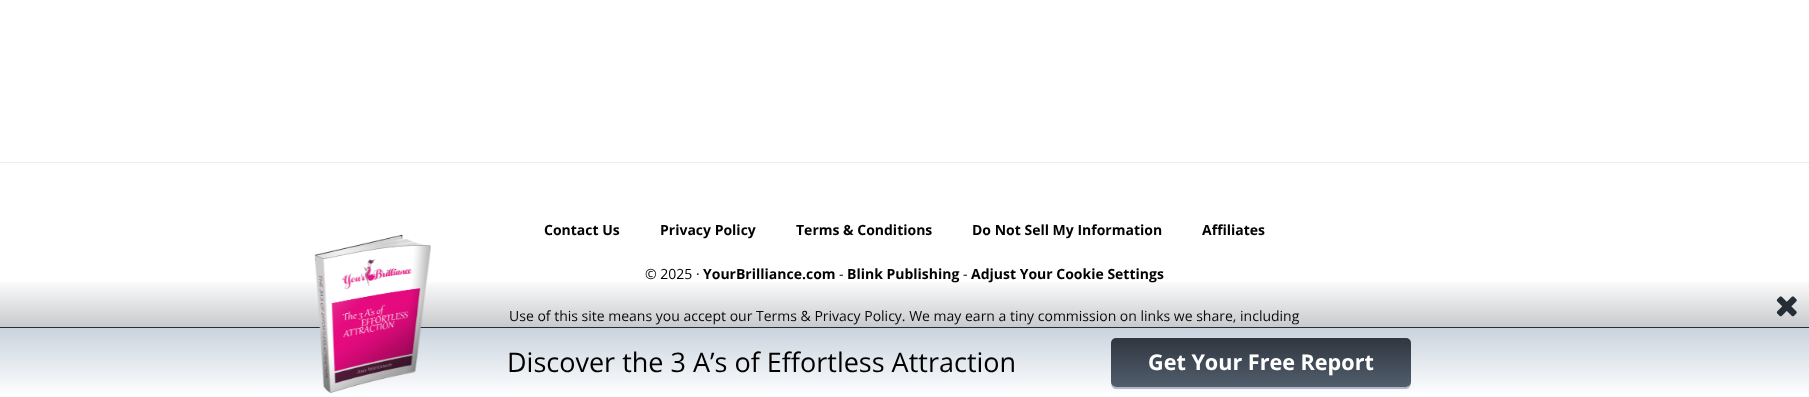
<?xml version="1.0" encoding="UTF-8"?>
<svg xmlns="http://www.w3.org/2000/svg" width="1809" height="397">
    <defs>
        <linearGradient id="g1" gradientUnits="userSpaceOnUse" x1="905" y1="328" x2="905" y2="397"><stop offset="0" stop-color="#C9D3DE"/><stop offset="1" stop-color="#FFFFFF"/></linearGradient>
        <linearGradient id="g2" gradientUnits="userSpaceOnUse" x1="905" y1="278" x2="905" y2="328"><stop offset="0" stop-color="#232B36" stop-opacity="0"/><stop offset="0.98" stop-color="#232B36" stop-opacity="0.25"/><stop offset="0.99" stop-color="#252D37"/></linearGradient>
        <linearGradient id="g3" gradientUnits="userSpaceOnUse" x1="1261" y1="338" x2="1261" y2="387"><stop offset="0.05" stop-color="#313841"/><stop offset="1" stop-color="#525E6D"/></linearGradient>
    </defs>
    <rect width="100%" height="100%" fill="#FFFFFF"/>
    <rect x="0" y="162" width="1809" height="1" fill="#EEEEEE"/>
    <text x="544" y="235" font-family="Open Sans" font-size="14" font-weight="700" fill="#000000">Contact Us</text>
    <text x="660" y="235" font-family="Open Sans" font-size="14" font-weight="700" fill="#000000">Privacy Policy</text>
    <text x="796" y="235" font-family="Open Sans" font-size="14" font-weight="700" fill="#000000">Terms &amp; Conditions</text>
    <text x="972" y="235" font-family="Open Sans" font-size="14" font-weight="700" fill="#000000">Do Not Sell My Information</text>
    <text x="1202" y="235" font-family="Open Sans" font-size="14" font-weight="700" fill="#000000">Affiliates</text>
    <text x="645" y="279" font-family="Open Sans" font-size="14" fill="#000000">© 2025 ·</text>
    <text x="703" y="279" font-family="Open Sans" font-size="14" font-weight="700" fill="#000000">YourBrilliance.com</text>
    <text x="839" y="279" font-family="Open Sans" font-size="14" fill="#000000">-</text>
    <text x="847" y="279" font-family="Open Sans" font-size="14" font-weight="700" fill="#000000">Blink Publishing</text>
    <text x="963" y="279" font-family="Open Sans" font-size="14" fill="#000000">-</text>
    <text x="971" y="279" font-family="Open Sans" font-size="14" font-weight="700" fill="#000000">Adjust Your Cookie Settings</text>
    <text x="509" y="321" font-family="Open Sans" font-size="14" fill="#000000">Use of this site means you accept our Terms &amp; Privacy Policy. We may earn a tiny commission on links we share, including</text>
    <rect x="0" y="328" width="1809" height="66" fill="url(#g1)"/>
    <rect x="0" y="282" width="1809" height="46" fill="url(#g2)"/>
    <image x="314" y="235" width="117" height="158" href="img_01.png"/>
    <image x="1776" y="296" width="21" height="21" href="img_02.png"/>
    <text x="507" y="372" font-family="Open Sans" font-size="27" fill="#000000">Discover the 3 A’s of Effortless Attraction</text>
    <path d="M 1111 382 C 1111 385 1112 389 1116 389 H 1406 C 1410 389 1411 385 1411 382 C 1411 385 1409 387 1406 387 H 1116 C 1113 387 1111 385 1111 382 Z" fill="#AFBAC9"/>
    <rect x="1111" y="338" width="300" height="49" rx="5" fill="url(#g3)"/>
    <text x="1148" y="370" font-family="Open Sans" font-size="21.6" font-weight="700" fill="#FFFFFF">Get Your Free Report</text>
</svg>
